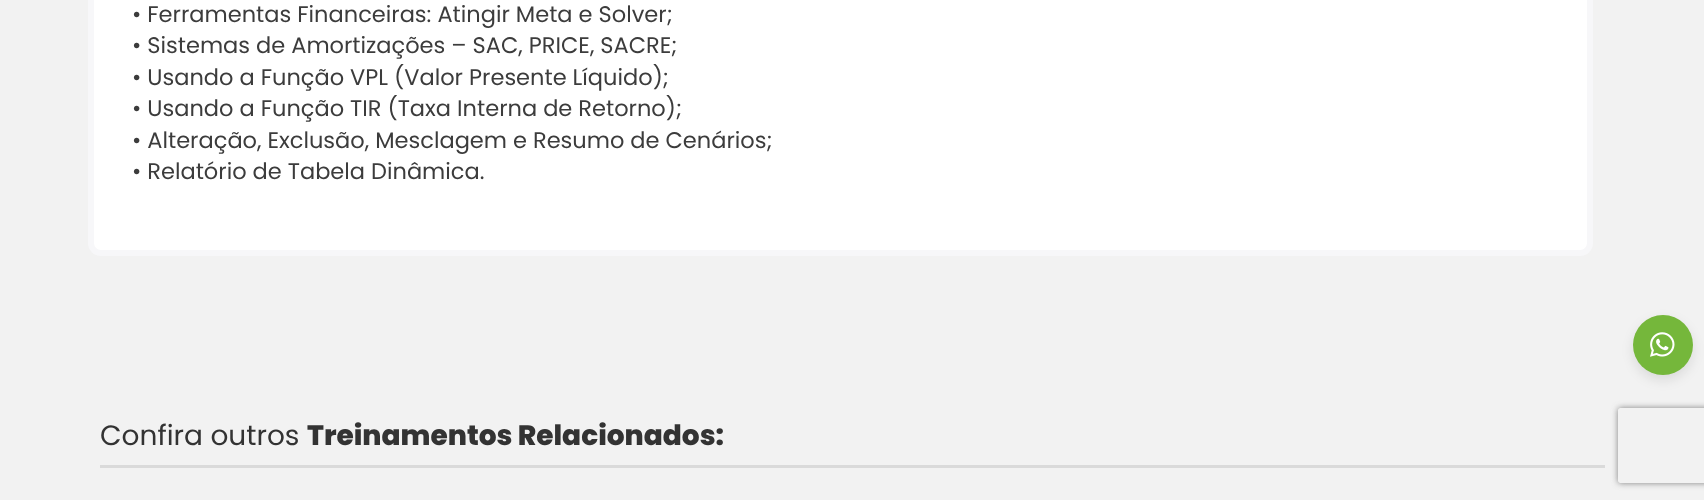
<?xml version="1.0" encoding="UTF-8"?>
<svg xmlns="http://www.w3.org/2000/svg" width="1704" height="500">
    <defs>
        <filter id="blur1" x="-50%" y="-200%" width="200%" height="500%"><feGaussianBlur stdDeviation="6"/></filter>
        <clipPath id="clip1"><path d="M 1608 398 H 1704 V 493 H 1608 Z M 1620.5 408 H 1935.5 C 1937 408 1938 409 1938 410.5 V 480.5 C 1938 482 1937 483 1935.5 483 H 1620.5 C 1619 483 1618 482 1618 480.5 V 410.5 C 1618 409 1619 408 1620.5 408 Z" clip-rule="evenodd"/></clipPath>
        <filter id="blur2" x="-50%" y="-200%" width="200%" height="500%"><feGaussianBlur stdDeviation="3"/></filter>
    </defs>
    <rect width="100%" height="100%" fill="#F2F2F2"/>
    <rect x="91" y="-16" width="1499" height="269" rx="10" fill="#FFFFFF" stroke="#F7F7F9" stroke-width="6"/>
    <text font-family="Poppins" font-size="22.5" fill="#3C3C3C">
        <tspan x="132" y="22">• Ferramentas Financeiras: Atingir Meta e Solver;</tspan>
        <tspan x="132" y="53">• Sistemas de Amortizações – SAC, PRICE, SACRE;</tspan>
        <tspan x="132" y="85">• Usando a Função VPL (Valor Presente Líquido);</tspan>
        <tspan x="132" y="116">• Usando a Função TIR (Taxa Interna de Retorno);</tspan>
        <tspan x="132" y="148">• Alteração, Exclusão, Mesclagem e Resumo de Cenários;</tspan>
        <tspan x="132" y="179">• Relatório de Tabela Dinâmica.</tspan>
    </text>
    <rect x="100" y="465" width="1505" height="3" fill="#DADADA"/>
    <text x="100" y="445" font-family="Poppins" font-size="28" fill="#333333">Confira outros</text>
    <text x="307" y="445" font-family="Poppins" font-size="28" font-weight="800" fill="#333333">Treinamentos Relacionados:</text>
    <rect x="1633" y="320" width="60" height="60" rx="30" fill="#171717" fill-opacity="0.1" filter="url(#blur1)"/>
    <circle cx="1663" cy="345" r="30" fill="#75B73B"/>
    <image x="1650" y="332" width="25" height="25" href="img_01.png"/>
    <g clip-path="url(#clip1)">
        <rect x="1618" y="408" width="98" height="75" rx="2.5" fill="#808080" filter="url(#blur2)"/>
    </g>
</svg>
